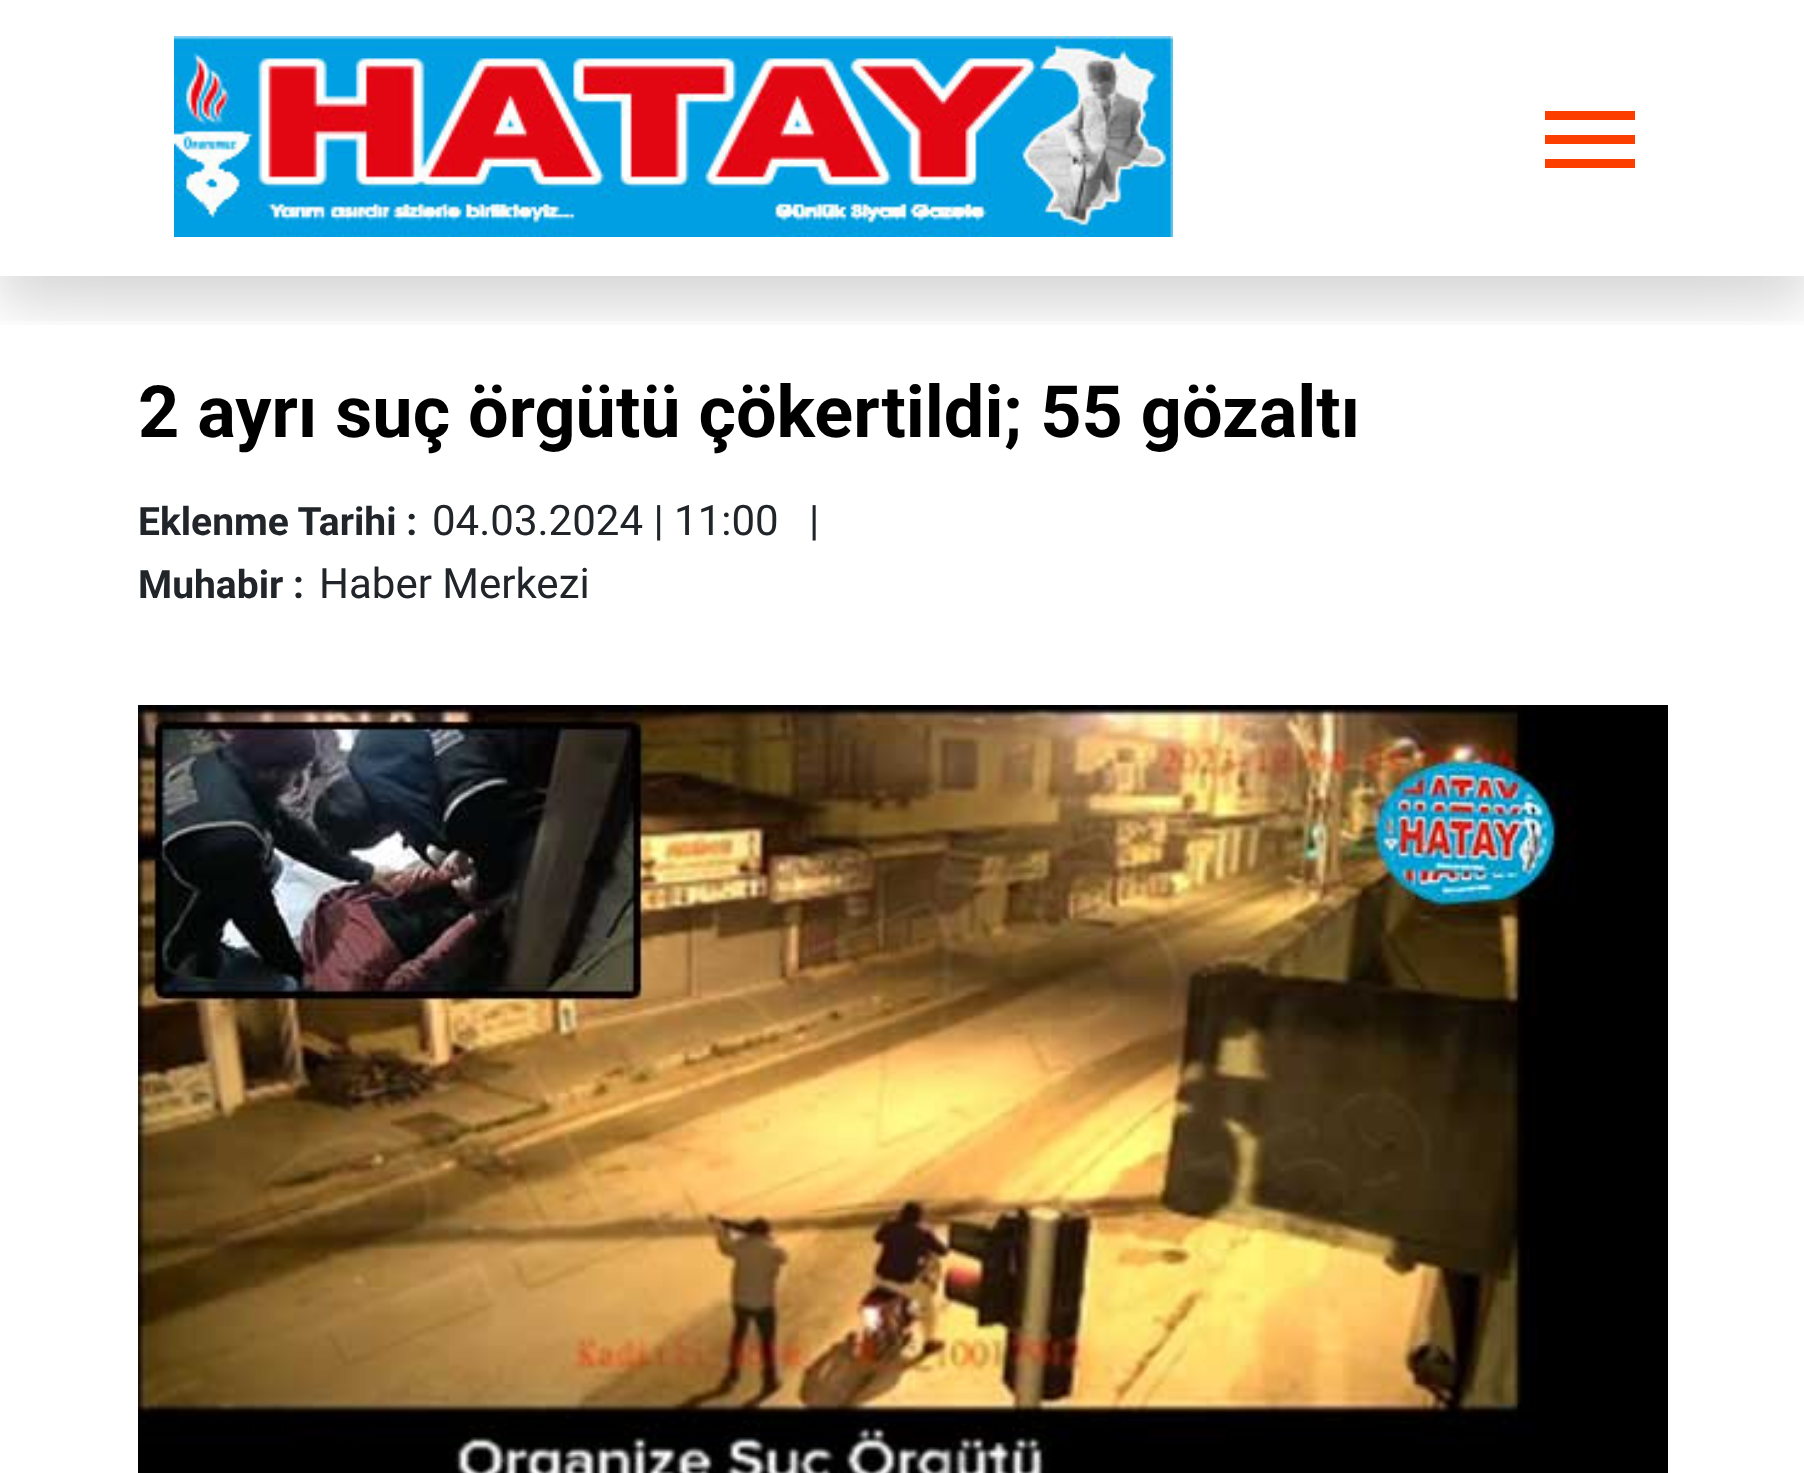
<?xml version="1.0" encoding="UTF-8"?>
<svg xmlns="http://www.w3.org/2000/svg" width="1804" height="1473">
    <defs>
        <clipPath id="clip1"><rect x="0" y="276" width="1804" height="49"/></clipPath>
        <filter id="blur1" x="-50%" y="-200%" width="200%" height="500%"><feGaussianBlur stdDeviation="22.5"/></filter>
        <clipPath id="clip2"><rect x="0" y="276" width="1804" height="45"/></clipPath>
        <filter id="blur2" x="-50%" y="-200%" width="200%" height="500%"><feGaussianBlur stdDeviation="54"/></filter>
    </defs>
    <rect width="100%" height="100%" fill="#FFFFFF"/>
    <g clip-path="url(#clip1)">
        <rect x="0" y="30" width="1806" height="276" fill="#191919" fill-opacity="0.1" filter="url(#blur1)"/>
    </g>
    <g clip-path="url(#clip2)">
        <rect x="0" y="0" width="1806" height="276" fill="#000000" fill-opacity="0.1" filter="url(#blur2)"/>
    </g>
    <image x="174" y="36" width="999" height="201" href="img_01.png"/>
    <rect x="1545" y="111" width="90" height="9" fill="#FC3F00"/>
    <rect x="1545" y="135" width="90" height="9" fill="#FC3F00"/>
    <rect x="1545" y="159" width="90" height="9" fill="#FC3F00"/>
    <text x="138" y="437" font-family="Roboto" font-size="72" font-weight="700" fill="#000000">2 ayrı suç örgütü çökertildi; 55 gözaltı</text>
    <text x="138" y="535" font-family="Roboto" font-size="39" font-weight="700" fill="#212529">Eklenme Tarihi :</text>
    <text x="432" y="535" font-family="Roboto" font-size="42" fill="#212529">04.03.2024 | 11:00</text>
    <text x="809" y="535" font-family="Roboto" font-size="42" fill="#212529">|</text>
    <text x="138" y="598" font-family="Roboto" font-size="39" font-weight="700" fill="#212529">Muhabir :</text>
    <text x="319" y="598" font-family="Roboto" font-size="42" fill="#212529">Haber Merkezi</text>
    <image x="138" y="705" width="1530" height="768" href="img_02.png"/>
</svg>
